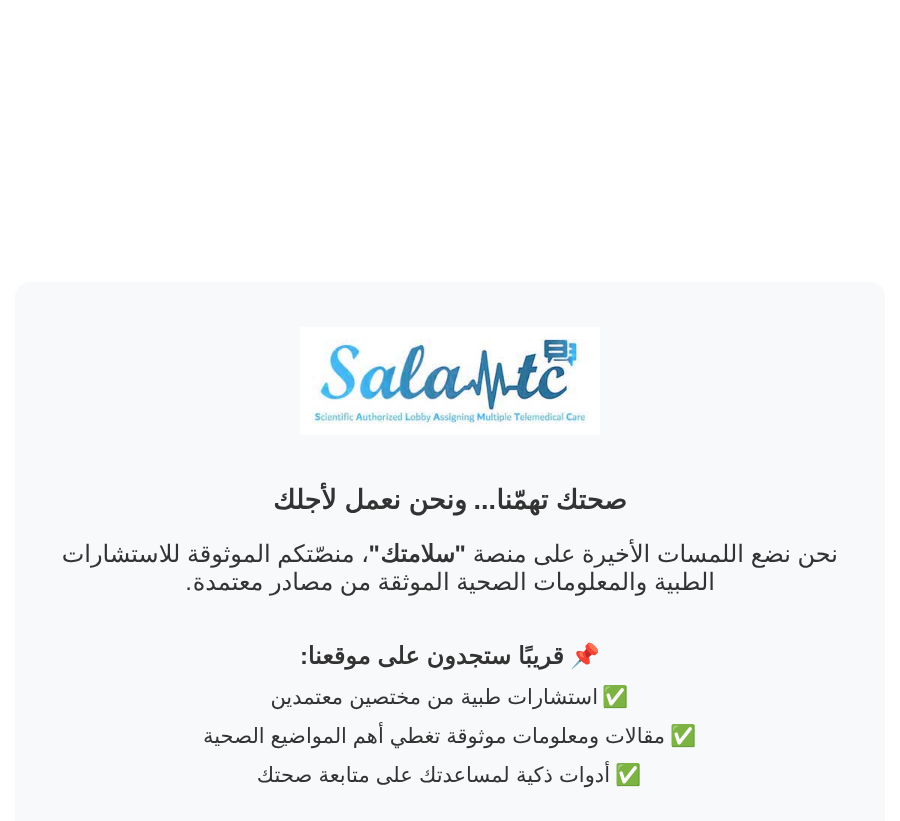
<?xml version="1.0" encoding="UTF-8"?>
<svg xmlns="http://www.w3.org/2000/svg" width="900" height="821">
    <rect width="100%" height="100%" fill="#FFFFFF"/>
    <path d="M 30 282 H 870 C 878.5 282 885 288.5 885 297 V 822 H 15 V 297 C 15 288.5 21.5 282 30 282 Z" fill="#F8F9FA"/>
    <image x="300" y="327" width="300" height="108" href="img_01.png"/>
    <text x="627" y="509" word-spacing="-1" font-family="DejaVu Sans" font-size="27" font-weight="700" direction="rtl" fill="#333333">صحتك تهمّنا</text>
    <text x="496" y="509" font-family="Liberation Sans" font-size="27" font-weight="700" direction="rtl" fill="#333333">...</text>
    <text x="467" y="509" word-spacing="-1" font-family="DejaVu Sans" font-size="27" font-weight="700" direction="rtl" fill="#333333">ونحن نعمل لأجلك</text>
    <text x="838" y="562" word-spacing="-1" font-family="DejaVu Sans" font-size="24" direction="rtl" fill="#333333">نحن نضع اللمسات الأخيرة على منصة</text>
    <text x="466" y="562" font-family="Liberation Sans" font-size="24" font-weight="700" direction="rtl" fill="#333333">"</text>
    <text x="455" y="562" font-family="DejaVu Sans" font-size="24" font-weight="700" direction="rtl" fill="#333333">سلامتك</text>
    <text x="380" y="562" font-family="Liberation Sans" font-size="24" font-weight="700" direction="rtl" fill="#333333">"</text>
    <text x="369" y="562" word-spacing="-1" font-family="DejaVu Sans" font-size="24" direction="rtl" fill="#333333">، منصّتكم الموثوقة للاستشارات</text>
    <text x="715" y="590" word-spacing="-1" font-family="DejaVu Sans" font-size="24" direction="rtl" fill="#333333">الطبية والمعلومات الصحية الموثقة من مصادر معتمدة</text>
    <text x="192" y="590" font-family="Liberation Sans" font-size="24" direction="rtl" fill="#333333">.</text>
    <text x="600" y="664" font-family="Noto Color Emoji" font-size="24" font-weight="700" direction="rtl" fill="#333333">📌</text>
    <text x="564" y="664" word-spacing="-0.75" font-family="DejaVu Sans" font-size="24" font-weight="700" direction="rtl" fill="#333333">قريبًا ستجدون على موقعنا</text>
    <text x="308" y="664" font-family="Liberation Sans" font-size="24" font-weight="700" direction="rtl" fill="#333333">:</text>
    <text x="629" y="704" font-family="Noto Color Emoji" font-size="21" direction="rtl" fill="#333333">✅</text>
    <text x="598" y="704" word-spacing="-0.5" font-family="DejaVu Sans" font-size="21" direction="rtl" fill="#333333">استشارات طبية من مختصين معتمدين</text>
    <text x="697" y="743" font-family="Noto Color Emoji" font-size="21" direction="rtl" fill="#333333">✅</text>
    <text x="665" y="743" word-spacing="-0.75" font-family="DejaVu Sans" font-size="21" direction="rtl" fill="#333333">مقالات ومعلومات موثوقة تغطي أهم المواضيع الصحية</text>
    <text x="642" y="782" font-family="Noto Color Emoji" font-size="21" direction="rtl" fill="#333333">✅</text>
    <text x="610" y="782" word-spacing="-0.5" font-family="DejaVu Sans" font-size="21" direction="rtl" fill="#333333">أدوات ذكية لمساعدتك على متابعة صحتك</text>
</svg>
